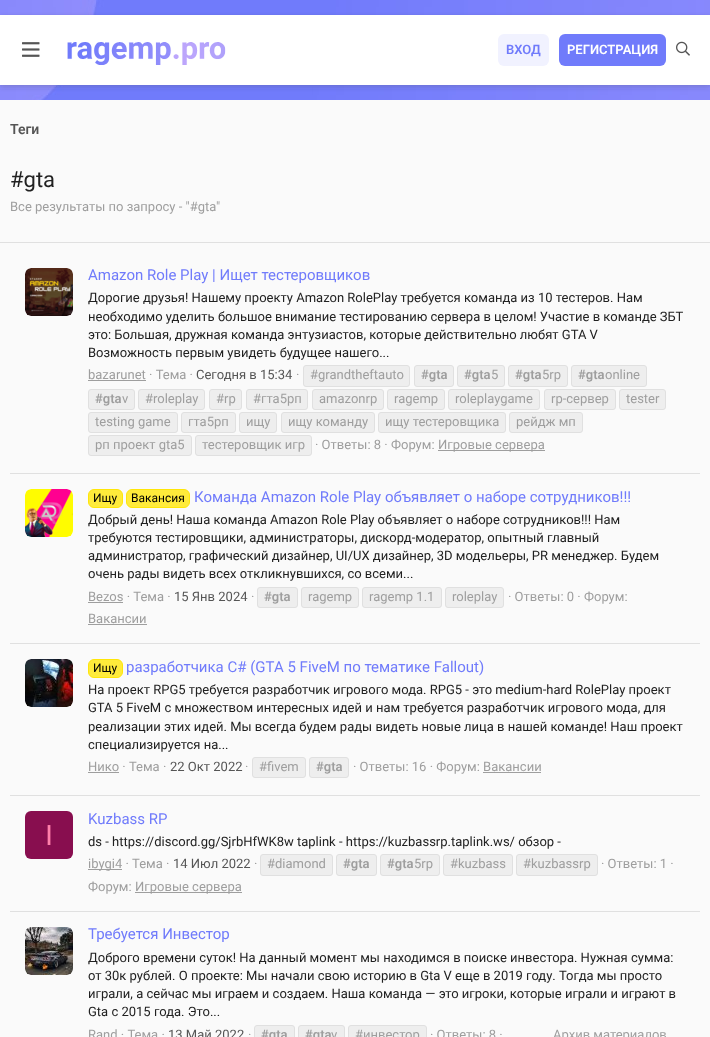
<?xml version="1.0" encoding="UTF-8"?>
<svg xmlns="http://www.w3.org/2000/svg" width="710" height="1037">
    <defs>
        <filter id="blur1" x="-50%" y="-200%" width="200%" height="500%"><feGaussianBlur stdDeviation="2.5"/></filter>
    </defs>
    <rect width="100%" height="100%" fill="#FAFAFA"/>
    <image x="0" y="0" width="710" height="100" href="img_01.png"/>
    <rect x="0" y="17" width="710" height="70" fill="#424242" fill-opacity="0.21" filter="url(#blur1)"/>
    <rect x="0" y="15" width="710" height="70" fill="#FFFFFF"/>
    <image x="22" y="42" width="18" height="15" href="img_02.png"/>
    <image x="67" y="42" width="159" height="23" href="img_03.png"/>
    <rect x="498" y="34" width="51" height="32" rx="6" fill="#F1F2FF"/>
    <text x="506" y="54" font-family="Roboto" font-size="13" font-weight="600" fill="#707BFB">ВХОД</text>
    <rect x="559" y="34" width="107" height="32" rx="6" fill="#707BFB"/>
    <text x="567" y="54" font-family="Roboto" font-size="13" font-weight="600" fill="#FFFFFF">РЕГИСТРАЦИЯ</text>
    <image x="676" y="41" width="14" height="15" href="img_04.png"/>
    <text x="10" y="134" font-family="Roboto" font-size="14" font-weight="600" fill="#555555">Теги</text>
    <text x="10" y="187" font-family="Roboto" font-size="22" fill="#212121">#gta</text>
    <text x="10" y="211" font-family="Roboto" font-size="13" fill="#9E9E9E">Все результаты по запросу - "#gta"</text>
    <rect x="0" y="242" width="710" height="1" fill="#E0E0E0"/>
    <rect x="25" y="268" width="48" height="48" rx="6" fill="#FFFFFF"/>
    <image x="25" y="268" width="48" height="48" href="img_05.png"/>
    <text x="88" y="280" font-family="Roboto" font-size="15" fill="#707BFB">Amazon Role Play | Ищет тестеровщиков</text>
    <text font-family="Roboto" font-size="13" fill="#212121">
        <tspan x="88" y="302">Дорогие друзья! Нашему проекту Amazon RolePlay требуется команда из 10 тестеров. Нам</tspan>
        <tspan x="88" y="321">необходимо уделить большое внимание тестированию сервера в целом! Участие в команде ЗБТ</tspan>
        <tspan x="88" y="339">это: Большая, дружная команда энтузиастов, которые действительно любят GTA V</tspan>
        <tspan x="88" y="357">Возможность первым увидеть будущее нашего...</tspan>
    </text>
    <text x="88" y="379" font-family="Roboto" font-size="13" fill="#9E9E9E">bazarunet · Тема ·</text>
    <rect x="88" y="380" width="58" height="1" fill="#9E9E9E"/>
    <text x="296" y="379" font-family="Roboto" font-size="13" fill="#9E9E9E">·</text>
    <rect x="303.5" y="365.5" width="106" height="21" rx="2.5" fill="#EEEEEE" stroke="#E0E0E0"/>
    <text x="310" y="379" font-family="Roboto" font-size="13" fill="#9E9E9E">#grandtheftauto</text>
    <rect x="414.5" y="365.5" width="39" height="21" rx="2.5" fill="#EEEEEE" stroke="#E0E0E0"/>
    <text x="421" y="379" font-family="Roboto" font-size="13" font-weight="600" fill="#9E9E9E">#gta</text>
    <rect x="457.5" y="365.5" width="47" height="21" rx="2.5" fill="#EEEEEE" stroke="#E0E0E0"/>
    <text x="464" y="379" font-family="Roboto" font-size="13" font-weight="600" fill="#9E9E9E">#gta</text>
    <text x="491" y="379" font-family="Roboto" font-size="13" fill="#9E9E9E">5</text>
    <rect x="508.5" y="365.5" width="59" height="21" rx="2.5" fill="#EEEEEE" stroke="#E0E0E0"/>
    <text x="515" y="379" font-family="Roboto" font-size="13" font-weight="600" fill="#9E9E9E">#gta</text>
    <text x="542" y="379" font-family="Roboto" font-size="13" fill="#9E9E9E">5rp</text>
    <rect x="571.5" y="365.5" width="75" height="21" rx="2.5" fill="#EEEEEE" stroke="#E0E0E0"/>
    <text x="578" y="379" font-family="Roboto" font-size="13" font-weight="600" fill="#9E9E9E">#gta</text>
    <text x="605" y="379" font-family="Roboto" font-size="13" fill="#9E9E9E">online</text>
    <rect x="88.5" y="389.5" width="46" height="20" rx="2.5" fill="#EEEEEE" stroke="#E0E0E0"/>
    <text x="95" y="403" font-family="Roboto" font-size="13" font-weight="600" fill="#9E9E9E">#gta</text>
    <text x="122" y="403" font-family="Roboto" font-size="13" fill="#9E9E9E">v</text>
    <rect x="138.5" y="389.5" width="66" height="20" rx="2.5" fill="#EEEEEE" stroke="#E0E0E0"/>
    <text x="145" y="403" font-family="Roboto" font-size="13" fill="#9E9E9E">#roleplay</text>
    <rect x="209.5" y="389.5" width="32" height="20" rx="2.5" fill="#EEEEEE" stroke="#E0E0E0"/>
    <text x="216" y="403" font-family="Roboto" font-size="13" fill="#9E9E9E">#rp</text>
    <rect x="246.5" y="389.5" width="61" height="20" rx="2.5" fill="#EEEEEE" stroke="#E0E0E0"/>
    <text x="253" y="403" font-family="Roboto" font-size="13" fill="#9E9E9E">#гта5рп</text>
    <rect x="312.5" y="389.5" width="71" height="20" rx="2.5" fill="#EEEEEE" stroke="#E0E0E0"/>
    <text x="319" y="403" font-family="Roboto" font-size="13" fill="#9E9E9E">amazonrp</text>
    <rect x="387.5" y="389.5" width="57" height="20" rx="2.5" fill="#EEEEEE" stroke="#E0E0E0"/>
    <text x="394" y="403" font-family="Roboto" font-size="13" fill="#9E9E9E">ragemp</text>
    <rect x="448.5" y="389.5" width="91" height="20" rx="2.5" fill="#EEEEEE" stroke="#E0E0E0"/>
    <text x="455" y="403" font-family="Roboto" font-size="13" fill="#9E9E9E">roleplaygame</text>
    <rect x="544.5" y="389.5" width="71" height="20" rx="2.5" fill="#EEEEEE" stroke="#E0E0E0"/>
    <text x="551" y="403" font-family="Roboto" font-size="13" fill="#9E9E9E">rp-сервер</text>
    <rect x="619.5" y="389.5" width="46" height="20" rx="2.5" fill="#EEEEEE" stroke="#E0E0E0"/>
    <text x="626" y="403" font-family="Roboto" font-size="13" fill="#9E9E9E">tester</text>
    <rect x="88.5" y="412.5" width="89" height="20" rx="2.5" fill="#EEEEEE" stroke="#E0E0E0"/>
    <text x="95" y="426" font-family="Roboto" font-size="13" fill="#9E9E9E">testing game</text>
    <rect x="181.5" y="412.5" width="54" height="20" rx="2.5" fill="#EEEEEE" stroke="#E0E0E0"/>
    <text x="188" y="426" font-family="Roboto" font-size="13" fill="#9E9E9E">гта5рп</text>
    <rect x="239.5" y="412.5" width="37" height="20" rx="2.5" fill="#EEEEEE" stroke="#E0E0E0"/>
    <text x="246" y="426" font-family="Roboto" font-size="13" fill="#9E9E9E">ищу</text>
    <rect x="281.5" y="412.5" width="93" height="20" rx="2.5" fill="#EEEEEE" stroke="#E0E0E0"/>
    <text x="288" y="426" font-family="Roboto" font-size="13" fill="#9E9E9E">ищу команду</text>
    <rect x="378.5" y="412.5" width="127" height="20" rx="2.5" fill="#EEEEEE" stroke="#E0E0E0"/>
    <text x="385" y="426" font-family="Roboto" font-size="13" fill="#9E9E9E">ищу тестеровщика</text>
    <rect x="509.5" y="412.5" width="73" height="20" rx="2.5" fill="#EEEEEE" stroke="#E0E0E0"/>
    <text x="516" y="426" font-family="Roboto" font-size="13" fill="#9E9E9E">рейдж мп</text>
    <rect x="88.5" y="435.5" width="103" height="20" rx="2.5" fill="#EEEEEE" stroke="#E0E0E0"/>
    <text x="95" y="449" font-family="Roboto" font-size="13" fill="#9E9E9E">рп проект gta5</text>
    <rect x="195.5" y="435.5" width="116" height="20" rx="2.5" fill="#EEEEEE" stroke="#E0E0E0"/>
    <text x="202" y="449" font-family="Roboto" font-size="13" fill="#9E9E9E">тестеровщик игр</text>
    <text x="196" y="379" font-family="Roboto" font-size="13" fill="#555555">Сегодня в 15:34</text>
    <text x="315" y="449" font-family="Roboto" font-size="13" fill="#9E9E9E">· Ответы: 8 · Форум:</text>
    <rect x="438" y="450" width="107" height="1" fill="#9E9E9E"/>
    <text x="438" y="449" font-family="Roboto" font-size="13" fill="#9E9E9E">Игровые сервера</text>
    <rect x="10" y="473" width="690" height="1" fill="#E0E0E0"/>
    <rect x="25" y="489" width="48" height="48" rx="6" fill="#FFFFFF"/>
    <image x="25" y="489" width="48" height="48" href="img_06.png"/>
    <rect x="88.5" y="489.5" width="34" height="18" rx="5.5" fill="#FFEB3B" stroke="#FFE608"/>
    <text x="93" y="502" font-family="Roboto" font-size="12" fill="#000000">Ищу</text>
    <rect x="126.5" y="489.5" width="63" height="18" rx="5.5" fill="#FFEB3B" stroke="#FFE608"/>
    <text x="131" y="502" font-family="Roboto" font-size="12" fill="#000000">Вакансия</text>
    <text x="194" y="502" font-family="Roboto" font-size="15" fill="#707BFB">Команда Amazon Role Play объявляет о наборе сотрудников!!!</text>
    <text font-family="Roboto" font-size="13" fill="#212121">
        <tspan x="88" y="524">Добрый день! Наша команда Amazon Role Play объявляет о наборе сотрудников!!! Нам</tspan>
        <tspan x="88" y="542">требуются тестировщики, администраторы, дискорд-модератор, опытный главный</tspan>
        <tspan x="88" y="560">администратор, графический дизайнер, UI/UX дизайнер, 3D модельеры, PR менеджер. Будем</tspan>
        <tspan x="88" y="578">очень рады видеть всех откликнувшихся, со всеми...</tspan>
    </text>
    <text x="88" y="601" font-family="Roboto" font-size="13" fill="#9E9E9E">Bezos · Тема ·</text>
    <rect x="88" y="602" width="35" height="1" fill="#9E9E9E"/>
    <text x="174" y="601" font-family="Roboto" font-size="13" fill="#555555">15 Янв 2024</text>
    <text x="251" y="601" font-family="Roboto" font-size="13" fill="#9E9E9E">·</text>
    <rect x="257.5" y="587.5" width="40" height="20" rx="2.5" fill="#EEEEEE" stroke="#E0E0E0"/>
    <text x="264" y="601" font-family="Roboto" font-size="13" font-weight="600" fill="#9E9E9E">#gta</text>
    <rect x="301.5" y="587.5" width="57" height="20" rx="2.5" fill="#EEEEEE" stroke="#E0E0E0"/>
    <text x="308" y="601" font-family="Roboto" font-size="13" fill="#9E9E9E">ragemp</text>
    <rect x="362.5" y="587.5" width="79" height="20" rx="2.5" fill="#EEEEEE" stroke="#E0E0E0"/>
    <text x="369" y="601" font-family="Roboto" font-size="13" fill="#9E9E9E">ragemp 1.1</text>
    <rect x="445.5" y="587.5" width="58" height="20" rx="2.5" fill="#EEEEEE" stroke="#E0E0E0"/>
    <text x="452" y="601" font-family="Roboto" font-size="13" fill="#9E9E9E">roleplay</text>
    <text x="508" y="601" font-family="Roboto" font-size="13" fill="#9E9E9E">· Ответы: 0 · Форум:</text>
    <text x="88" y="623" font-family="Roboto" font-size="13" fill="#9E9E9E">Вакансии</text>
    <rect x="88" y="624" width="59" height="1" fill="#9E9E9E"/>
    <rect x="10" y="643" width="690" height="1" fill="#E0E0E0"/>
    <rect x="25" y="659" width="48" height="48" rx="6" fill="#FFFFFF"/>
    <image x="25" y="659" width="48" height="48" href="img_07.png"/>
    <rect x="88.5" y="659.5" width="34" height="18" rx="5.5" fill="#FFEB3B" stroke="#FFE608"/>
    <text x="93" y="672" font-family="Roboto" font-size="12" fill="#000000">Ищу</text>
    <text x="126" y="672" font-family="Roboto" font-size="15" fill="#707BFB">разработчика C# (GTA 5 FiveM по тематике Fallout)</text>
    <text font-family="Roboto" font-size="13" fill="#212121">
        <tspan x="88" y="694">На проект RPG5 требуется разработчик игрового мода. RPG5 - это medium-hard RolePlay проект</tspan>
        <tspan x="88" y="712">GTA 5 FiveM с множеством интересных идей и нам требуется разработчик игрового мода, для</tspan>
        <tspan x="88" y="731">реализации этих идей. Мы всегда будем рады видеть новые лица в нашей команде! Наш проект</tspan>
        <tspan x="88" y="749">специализируется на...</tspan>
    </text>
    <text x="88" y="771" font-family="Roboto" font-size="13" fill="#9E9E9E">Нико · Тема ·</text>
    <rect x="88" y="772" width="31" height="1" fill="#9E9E9E"/>
    <text x="170" y="771" font-family="Roboto" font-size="13" fill="#555555">22 Окт 2022</text>
    <text x="245" y="771" font-family="Roboto" font-size="13" fill="#9E9E9E">·</text>
    <rect x="252.5" y="757.5" width="53" height="20" rx="2.5" fill="#EEEEEE" stroke="#E0E0E0"/>
    <text x="259" y="771" font-family="Roboto" font-size="13" fill="#9E9E9E">#fivem</text>
    <rect x="309.5" y="757.5" width="39" height="20" rx="2.5" fill="#EEEEEE" stroke="#E0E0E0"/>
    <text x="316" y="771" font-family="Roboto" font-size="13" font-weight="600" fill="#9E9E9E">#gta</text>
    <text x="353" y="771" font-family="Roboto" font-size="13" fill="#9E9E9E">· Ответы: 16 · Форум: Вакансии</text>
    <rect x="483" y="772" width="58" height="1" fill="#9E9E9E"/>
    <rect x="10" y="795" width="690" height="1" fill="#E0E0E0"/>
    <rect x="25" y="811" width="48" height="48" rx="6" fill="#880E4F"/>
    <text x="45" y="845" font-family="Liberation Sans" font-size="29" fill="#FF80AB">I</text>
    <text x="88" y="824" font-family="Roboto" font-size="15" fill="#707BFB">Kuzbass RP</text>
    <text x="88" y="846" font-family="Roboto" font-size="13" fill="#212121">ds - https://discord.gg/SjrbHfWK8w taplink - https://kuzbassrp.taplink.ws/ обзор -</text>
    <rect x="88" y="869" width="34" height="1" fill="#9E9E9E"/>
    <text x="88" y="868" font-family="Roboto" font-size="13" fill="#9E9E9E">ibygi4 · Тема ·</text>
    <text x="173" y="868" font-family="Roboto" font-size="13" fill="#555555">14 Июл 2022</text>
    <text x="254" y="868" font-family="Roboto" font-size="13" fill="#9E9E9E">·</text>
    <rect x="260.5" y="854.5" width="72" height="21" rx="2.5" fill="#EEEEEE" stroke="#E0E0E0"/>
    <text x="267" y="868" font-family="Roboto" font-size="13" fill="#9E9E9E">#diamond</text>
    <rect x="336.5" y="854.5" width="40" height="21" rx="2.5" fill="#EEEEEE" stroke="#E0E0E0"/>
    <text x="343" y="868" font-family="Roboto" font-size="13" font-weight="600" fill="#9E9E9E">#gta</text>
    <rect x="380.5" y="854.5" width="59" height="21" rx="2.5" fill="#EEEEEE" stroke="#E0E0E0"/>
    <text x="387" y="868" font-family="Roboto" font-size="13" font-weight="600" fill="#9E9E9E">#gta</text>
    <text x="414" y="868" font-family="Roboto" font-size="13" fill="#9E9E9E">5rp</text>
    <rect x="443.5" y="854.5" width="69" height="21" rx="2.5" fill="#EEEEEE" stroke="#E0E0E0"/>
    <text x="450" y="868" font-family="Roboto" font-size="13" fill="#9E9E9E">#kuzbass</text>
    <rect x="516.5" y="854.5" width="81" height="21" rx="2.5" fill="#EEEEEE" stroke="#E0E0E0"/>
    <text x="523" y="868" font-family="Roboto" font-size="13" fill="#9E9E9E">#kuzbassrp</text>
    <text x="601" y="868" font-family="Roboto" font-size="13" fill="#9E9E9E">· Ответы: 1 ·</text>
    <text x="88" y="891" font-family="Roboto" font-size="13" fill="#9E9E9E">Форум:</text>
    <rect x="135" y="892" width="107" height="1" fill="#9E9E9E"/>
    <text x="135" y="891" font-family="Roboto" font-size="13" fill="#9E9E9E">Игровые сервера</text>
    <rect x="10" y="911" width="690" height="1" fill="#E0E0E0"/>
    <rect x="25" y="927" width="48" height="48" rx="6" fill="#FFFFFF"/>
    <image x="25" y="927" width="48" height="48" href="img_08.png"/>
    <text x="88" y="939" font-family="Roboto" font-size="15" fill="#707BFB">Требуется Инвестор</text>
    <text font-family="Roboto" font-size="13" fill="#212121">
        <tspan x="88" y="962">Доброго времени суток! На данный момент мы находимся в поиске инвестора. Нужная сумма:</tspan>
        <tspan x="88" y="980">от 30к рублей. О проекте: Мы начали свою историю в Gta V еще в 2019 году. Тогда мы просто</tspan>
        <tspan x="88" y="998">играли, а сейчас мы играем и создаем. Наша команда — это игроки, которые играли и играют в</tspan>
        <tspan x="88" y="1016">Gta с 2015 года. Это...</tspan>
    </text>
    <text x="88" y="1039" font-family="Roboto" font-size="13" fill="#9E9E9E">Rand · Тема ·</text>
    <text x="168" y="1039" font-family="Roboto" font-size="13" fill="#555555">13 Май 2022</text>
    <text x="248" y="1039" font-family="Roboto" font-size="13" fill="#9E9E9E">·</text>
    <rect x="254.5" y="1025.5" width="40" height="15" rx="2.5" fill="#EEEEEE" stroke="#E0E0E0"/>
    <text x="261" y="1039" font-family="Roboto" font-size="13" font-weight="600" fill="#9E9E9E">#gta</text>
    <rect x="298.5" y="1025.5" width="46" height="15" rx="2.5" fill="#EEEEEE" stroke="#E0E0E0"/>
    <text x="305" y="1039" font-family="Roboto" font-size="13" font-weight="600" fill="#9E9E9E">#gta</text>
    <text x="331" y="1039" font-family="Roboto" font-size="13" fill="#9E9E9E">v</text>
    <rect x="348.5" y="1025.5" width="78" height="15" rx="2.5" fill="#EEEEEE" stroke="#E0E0E0"/>
    <text x="355" y="1039" font-family="Roboto" font-size="13" fill="#9E9E9E">#инвестор</text>
    <text x="430" y="1039" font-family="Roboto" font-size="13" fill="#9E9E9E">· Ответы: 8 ·</text>
    <text x="553" y="1039" font-family="Roboto" font-size="13" fill="#9E9E9E">Архив материалов</text>
</svg>
